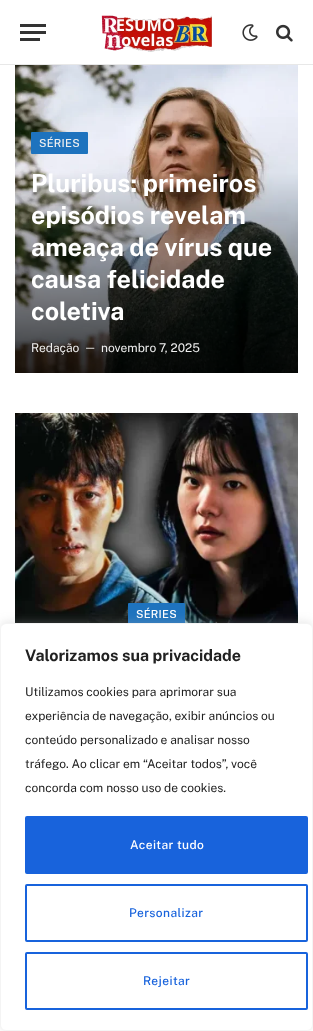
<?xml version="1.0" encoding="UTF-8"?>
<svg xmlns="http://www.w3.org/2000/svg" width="313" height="1031">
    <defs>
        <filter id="blur1" x="-50%" y="-200%" width="200%" height="500%"><feGaussianBlur stdDeviation="5"/></filter>
    </defs>
    <rect width="100%" height="100%" fill="#FFFFFF"/>
    <rect x="0" y="64" width="313" height="1" fill="#E8E8E8"/>
    <rect x="20" y="38" width="20" height="3" fill="#333333"/>
    <rect x="20" y="24" width="26" height="3" fill="#333333"/>
    <rect x="20" y="31" width="26" height="3" fill="#333333"/>
    <image x="101" y="15" width="111" height="37" href="img_01.png"/>
    <image x="242" y="24" width="16" height="17" href="img_02.png"/>
    <image x="276" y="24" width="17" height="18" href="img_03.png"/>
    <image x="15" y="65" width="283" height="308" href="img_04.png"/>
    <rect x="31" y="132" width="57" height="22" rx="1" fill="#1E73BE"/>
    <text x="39" y="147" font-family="Public Sans" font-size="11" font-weight="500" letter-spacing="0.25" fill="#EFEFEF">SÉRIES</text>
    <text font-family="Public Sans" font-size="25" font-weight="700" fill="#FFFFFF">
        <tspan x="31" y="192">Pluribus: primeiros</tspan>
        <tspan x="31" y="224">episódios revelam</tspan>
        <tspan x="31" y="256">ameaça de vírus que</tspan>
        <tspan x="31" y="288">causa felicidade</tspan>
        <tspan x="31" y="320">coletiva</tspan>
    </text>
    <text x="31" y="352" font-family="Public Sans" font-size="12" fill="#EFEFEF">Redação</text>
    <text x="84" y="351" font-family="Public Sans" font-size="11" fill="#EFEFEF">—</text>
    <text x="101" y="352" font-family="Public Sans" font-size="12" fill="#EFEFEF">novembro 7, 2025</text>
    <image x="15" y="413" width="283" height="210" href="img_05.png"/>
    <rect x="128" y="603" width="57" height="22" rx="1" fill="#1E73BE"/>
    <text x="136" y="618" font-family="Public Sans" font-size="11" font-weight="500" letter-spacing="0.25" fill="#FFFFFF">SÉRIES</text>
    <rect x="0" y="622" width="313" height="408" rx="6" fill="#ACABAB" fill-opacity="0.3" filter="url(#blur1)"/>
    <rect x="0.5" y="623.5" width="312" height="407" rx="5.5" fill="#FFFFFF" stroke="#F4F4F4"/>
    <text x="25" y="661" font-family="Public Sans" font-size="16" font-weight="700" fill="#212121">Valorizamos sua privacidade</text>
    <text x="25" y="696" font-family="Public Sans" font-size="12" fill="#212121">Utilizamos cookies para aprimorar sua</text>
    <text x="25" y="720" font-family="Public Sans" font-size="12" fill="#212121">experiência de navegação, exibir anúncios ou</text>
    <text x="25" y="744" font-family="Public Sans" font-size="12" fill="#212121">conteúdo personalizado e analisar nosso</text>
    <text x="25" y="768" font-family="Public Sans" font-size="12" fill="#212121">tráfego. Ao clicar em “Aceitar todos”, você</text>
    <text x="25" y="792" font-family="Public Sans" font-size="12" fill="#212121">concorda com nosso uso de cookies.</text>
    <rect x="26" y="817" width="281" height="56" rx="1" fill="#1863DC" stroke="#1863DC" stroke-width="2"/>
    <text x="130" y="849" font-family="Public Sans" font-size="12" font-weight="500" letter-spacing="0.4" fill="#FFFFFF">Aceitar tudo</text>
    <rect x="26" y="885" width="281" height="56" rx="1" fill="none" stroke="#1863DC" stroke-width="2"/>
    <text x="129" y="917" font-family="Public Sans" font-size="12" font-weight="500" letter-spacing="0.4" fill="#1863DC">Personalizar</text>
    <rect x="26" y="953" width="281" height="56" rx="1" fill="none" stroke="#1863DC" stroke-width="2"/>
    <text x="143" y="985" font-family="Public Sans" font-size="12" font-weight="500" letter-spacing="0.4" fill="#1863DC">Rejeitar</text>
</svg>
